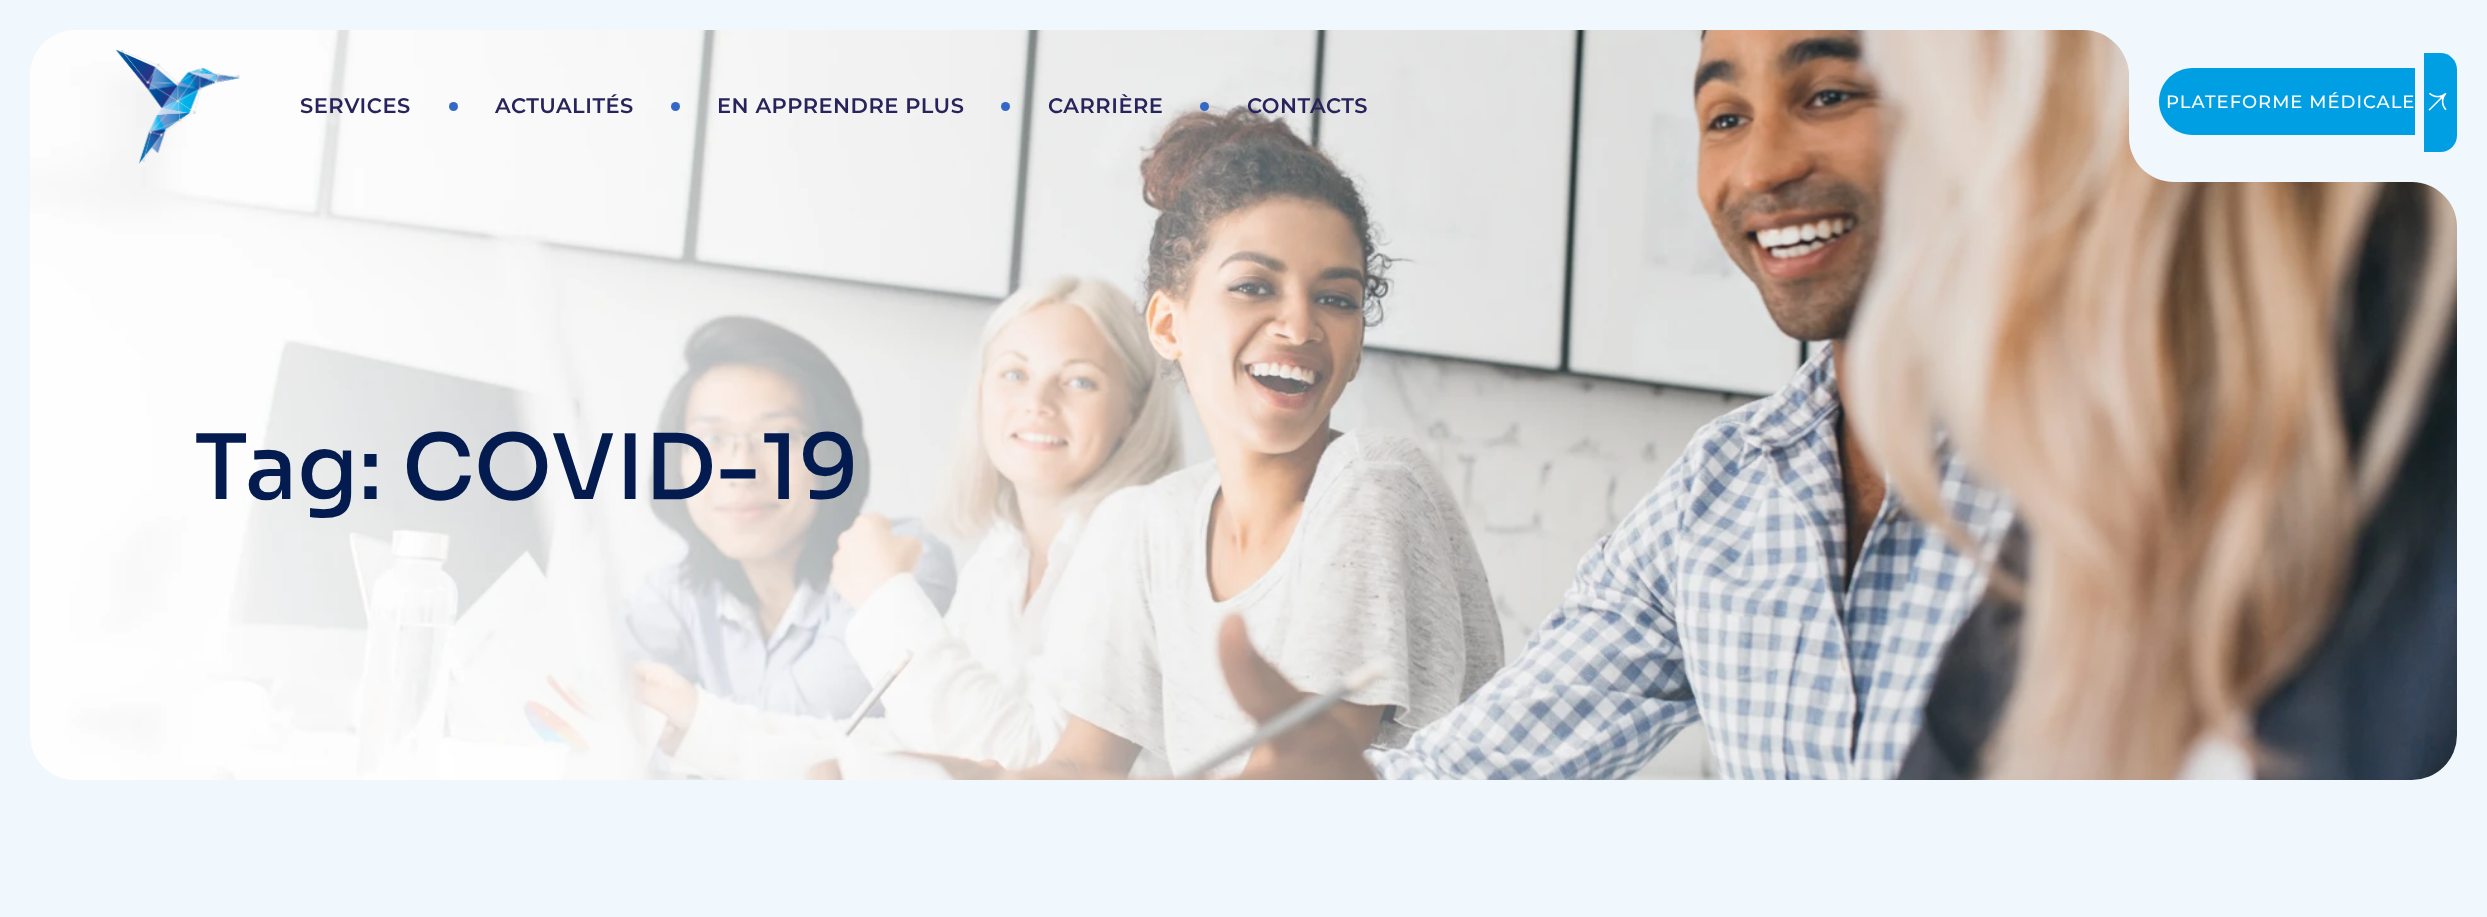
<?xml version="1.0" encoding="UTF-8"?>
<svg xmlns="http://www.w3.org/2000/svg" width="2487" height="917">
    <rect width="100%" height="100%" fill="#F0F7FD"/>
    <image x="30" y="30" width="2427" height="750" href="img_03.png"/>
    <image x="116" y="49" width="124" height="115" href="img_01.png"/>
    <text x="300" y="113" font-family="Montserrat" font-size="21" font-weight="600" letter-spacing="0.5" fill="#29235C">SERVICES</text>
    <circle cx="453.5" cy="106.5" r="4.5" fill="#3368C6"/>
    <text x="495" y="113" font-family="Montserrat" font-size="21" font-weight="600" letter-spacing="0.5" fill="#29235C">ACTUALITÉS</text>
    <circle cx="675.5" cy="106.5" r="4.5" fill="#3368C6"/>
    <text x="717" y="113" font-family="Montserrat" font-size="21" font-weight="600" letter-spacing="0.5" fill="#29235C">EN APPRENDRE PLUS</text>
    <circle cx="1005.5" cy="106.5" r="4.5" fill="#3368C6"/>
    <text x="1048" y="113" font-family="Montserrat" font-size="21" font-weight="600" letter-spacing="0.5" fill="#29235C">CARRIÈRE</text>
    <circle cx="1204.5" cy="106.5" r="4.5" fill="#3368C6"/>
    <text x="1247" y="113" font-family="Montserrat" font-size="21" font-weight="600" letter-spacing="0.5" fill="#29235C">CONTACTS</text>
    <path d="M 2129 30 H 2457 V 182 H 2174 C 2149 182 2129 162 2129 137 Z" fill="#F0F7FD"/>
    <path d="M 2129 30 H 2084 C 2107 30 2127 49 2129 72 Z" fill="#F0F7FD"/>
    <path d="M 2192.5 68 H 2415 V 135 H 2192.5 C 2174 135 2159 120 2159 101.5 C 2159 83 2174 68 2192.5 68 Z" fill="#009FE3"/>
    <path d="M 2424 53 H 2440.5 C 2449.5 53 2457 60.5 2457 69.5 V 135.5 C 2457 144.5 2449.5 152 2440.5 152 H 2424 Z" fill="#009FE3"/>
    <text x="2166" y="108" font-family="Montserrat" font-size="18" font-weight="500" letter-spacing="1" fill="#FFFFFF">PLATEFORME MÉDICALE</text>
    <image x="2428" y="92" width="19" height="19" href="img_02.png"/>
    <path d="M 2457 182 H 2412 C 2436 182 2457 202 2457 226 Z" fill="#F0F7FD"/>
    <text x="194" y="499" font-family="Sora" font-size="90" font-weight="500" fill="#031B4E">Tag: COVID-19</text>
</svg>
